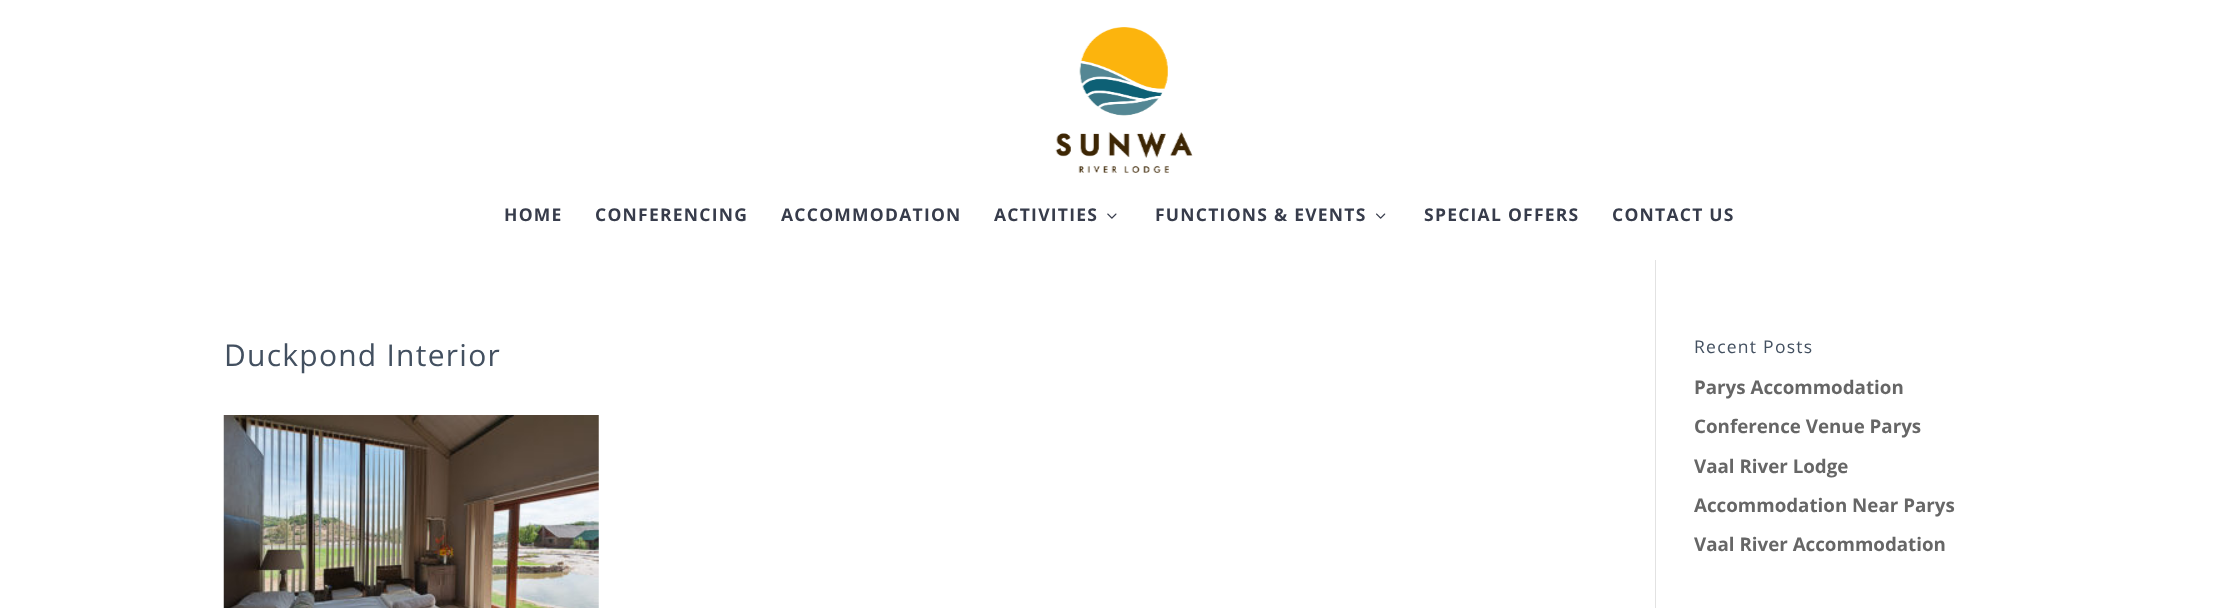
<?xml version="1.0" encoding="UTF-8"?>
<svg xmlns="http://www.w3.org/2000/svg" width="2238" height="608">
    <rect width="100%" height="100%" fill="#FFFFFF"/>
    <image x="1055" y="27" width="138" height="146" href="img_01.png"/>
    <text x="504" y="221" font-family="Open Sans" font-size="17.5" font-weight="700" letter-spacing="1.25" fill="#373C4B">HOME</text>
    <text x="595" y="221" font-family="Open Sans" font-size="17.5" font-weight="700" letter-spacing="1.25" fill="#373C4B">CONFERENCING</text>
    <text x="781" y="221" font-family="Open Sans" font-size="17.5" font-weight="700" letter-spacing="1.25" fill="#373C4B">ACCOMMODATION</text>
    <text x="994" y="221" font-family="Open Sans" font-size="17.5" font-weight="700" letter-spacing="1.25" fill="#373C4B">ACTIVITIES</text>
    <image x="1107" y="213" width="10" height="6" href="img_02.png"/>
    <text x="1155" y="221" font-family="Open Sans" font-size="17.5" font-weight="700" letter-spacing="1.25" fill="#373C4B">FUNCTIONS &amp; EVENTS</text>
    <image x="1376" y="213" width="10" height="6" href="img_03.png"/>
    <text x="1424" y="221" font-family="Open Sans" font-size="17.5" font-weight="700" letter-spacing="1.25" fill="#373C4B">SPECIAL OFFERS</text>
    <text x="1612" y="221" font-family="Open Sans" font-size="17.5" font-weight="700" letter-spacing="1.25" fill="#373C4B">CONTACT US</text>
    <rect x="1655" y="260" width="1" height="348" fill="#E2E2E2"/>
    <text x="224" y="366" font-family="Open Sans" font-size="30" letter-spacing="1.25" fill="#435060">Duckpond Interior</text>
    <image x="223" y="415" width="376" height="193" href="img_04.png"/>
    <text x="1694" y="353" font-family="Open Sans" font-size="17.5" letter-spacing="1.25" fill="#435060">Recent Posts</text>
    <text x="1694" y="394" font-family="Open Sans" font-size="18.75" font-weight="700" fill="#666666">Parys Accommodation</text>
    <text x="1694" y="433" font-family="Open Sans" font-size="18.75" font-weight="700" fill="#666666">Conference Venue Parys</text>
    <text x="1694" y="473" font-family="Open Sans" font-size="18.75" font-weight="700" fill="#666666">Vaal River Lodge</text>
    <text x="1694" y="512" font-family="Open Sans" font-size="18.75" font-weight="700" fill="#666666">Accommodation Near Parys</text>
    <text x="1694" y="551" font-family="Open Sans" font-size="18.75" font-weight="700" fill="#666666">Vaal River Accommodation</text>
</svg>
